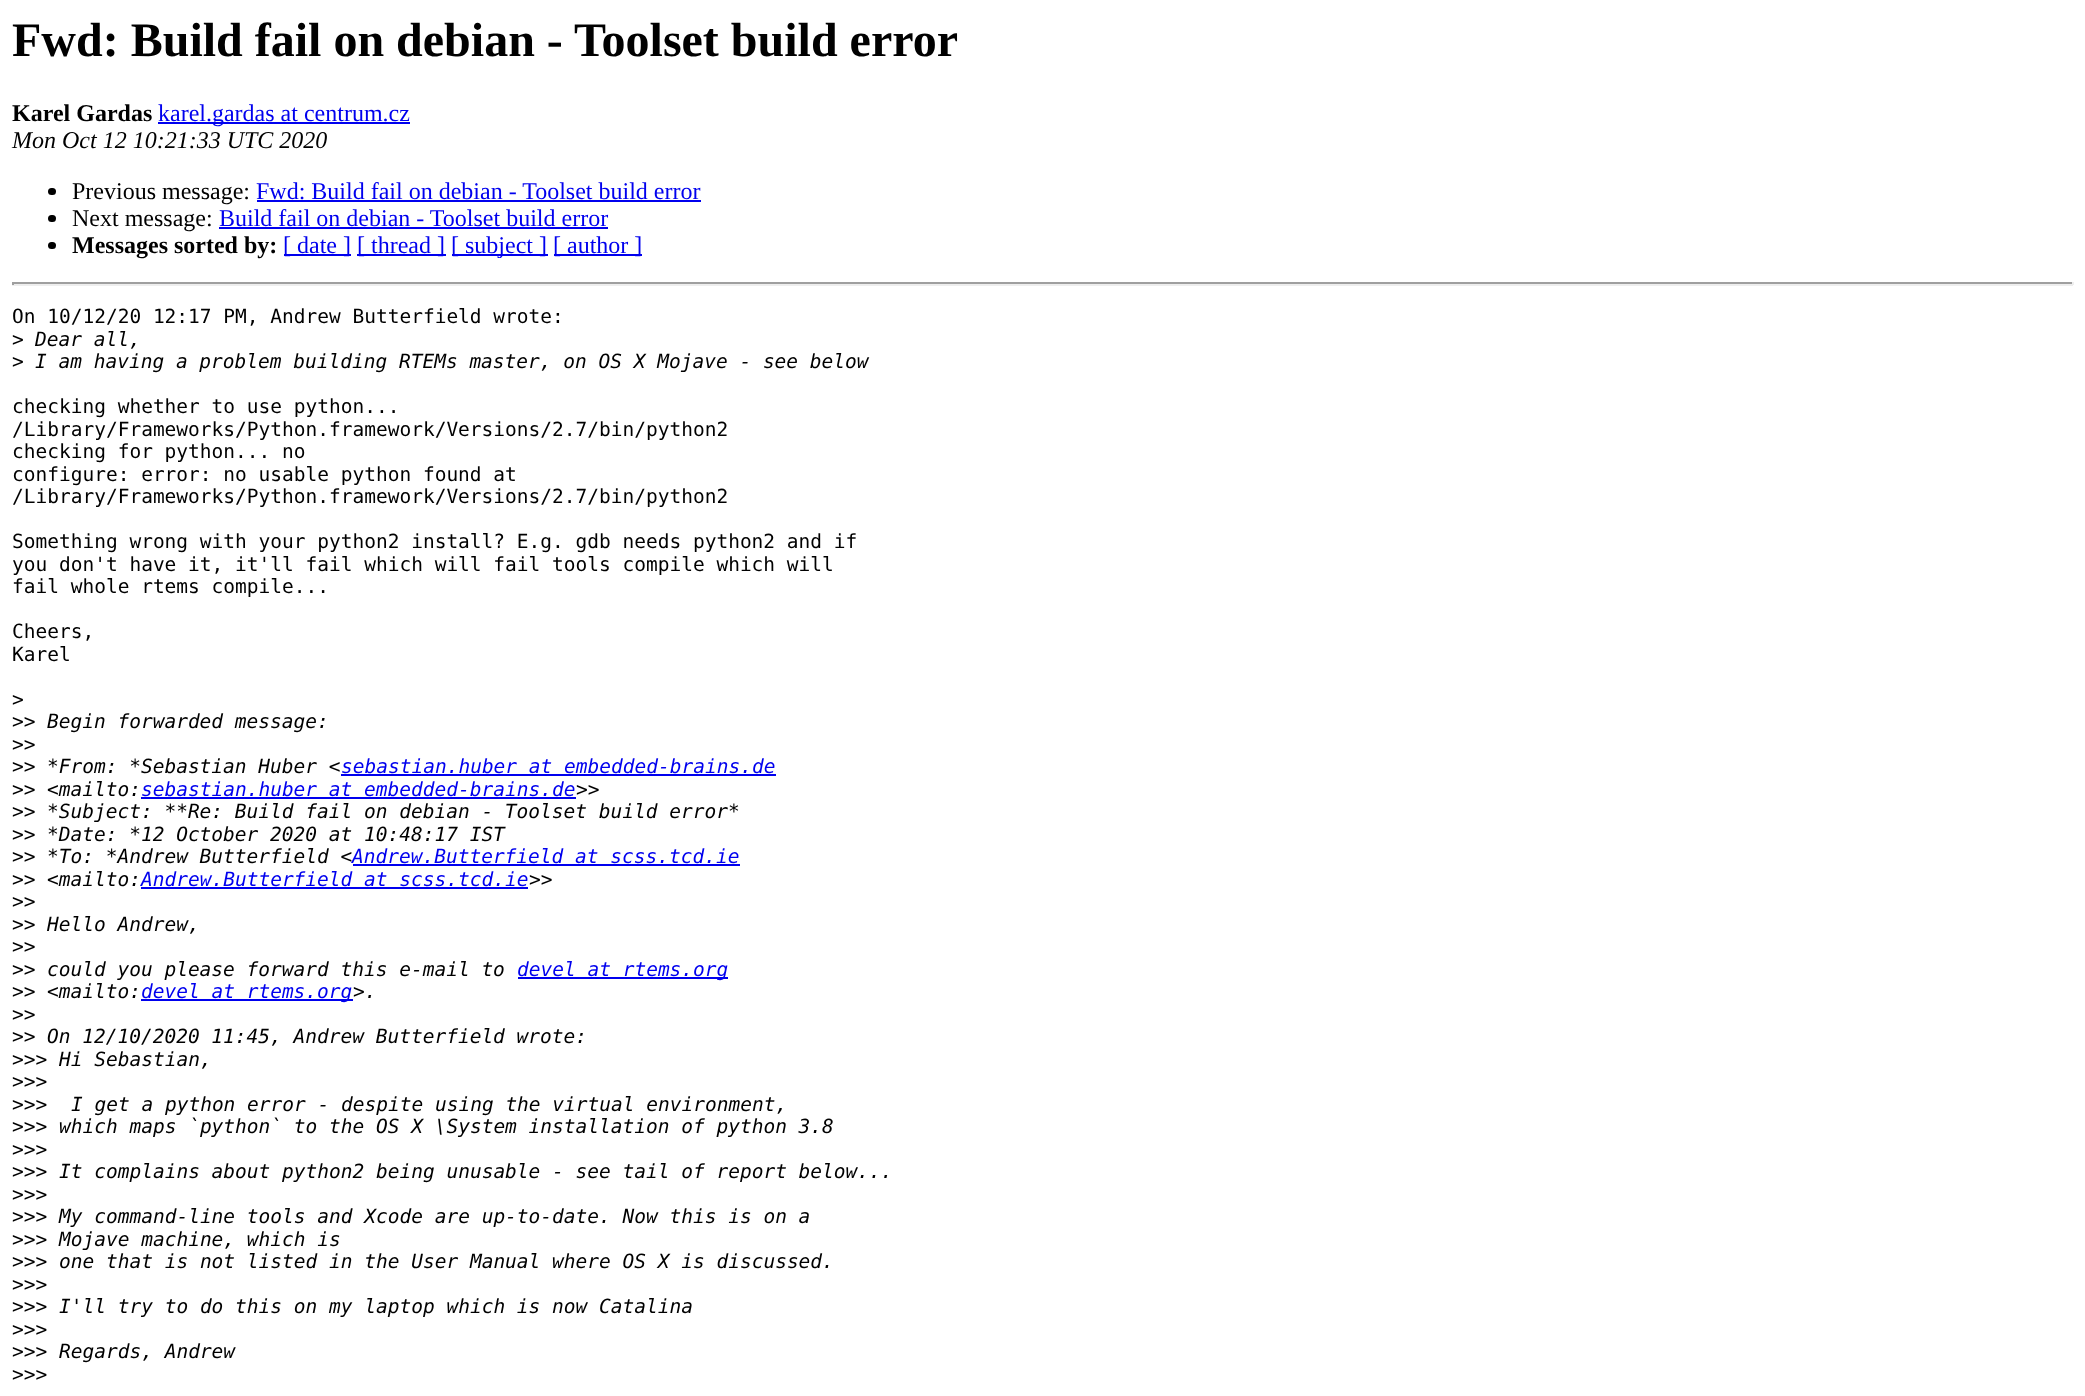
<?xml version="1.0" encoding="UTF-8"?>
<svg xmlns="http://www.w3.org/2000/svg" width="2085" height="1396">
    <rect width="100%" height="100%" fill="#FFFFFF"/>
    <text x="12" y="56" font-family="Liberation Serif" font-size="48" font-weight="700" fill="#000000">Fwd: Build fail on debian - Toolset build error</text>
    <text x="12" y="121" font-family="Liberation Serif" font-size="24" font-weight="700" fill="#000000">Karel Gardas</text>
    <rect x="158" y="122" width="252" height="2" fill="#0000EE"/>
    <text x="158" y="121" font-family="Liberation Serif" font-size="24" fill="#0000EE">karel.gardas at centrum.cz</text>
    <text x="12" y="148" font-family="Liberation Serif" font-size="24" font-style="italic" fill="#000000">Mon Oct 12 10:21:33 UTC 2020</text>
    <rect x="48" y="188" width="8" height="7" rx="3.5" fill="#000000"/>
    <text x="72" y="199" font-family="Liberation Serif" font-size="24" fill="#000000">Previous message:</text>
    <text x="256" y="199" font-family="Liberation Serif" font-size="24" fill="#0000EE">Fwd: Build fail on debian - Toolset build error</text>
    <rect x="257" y="200" width="444" height="2" fill="#0000EE"/>
    <rect x="48" y="215" width="8" height="7" rx="3.5" fill="#000000"/>
    <text x="72" y="226" font-family="Liberation Serif" font-size="24" fill="#000000">Next message:</text>
    <text x="219" y="226" font-family="Liberation Serif" font-size="24" fill="#0000EE">Build fail on debian - Toolset build error</text>
    <rect x="219" y="227" width="389" height="2" fill="#0000EE"/>
    <rect x="48" y="242" width="8" height="7" rx="3.5" fill="#000000"/>
    <text x="72" y="253" font-family="Liberation Serif" font-size="24" font-weight="700" fill="#000000">Messages sorted by:</text>
    <rect x="284" y="254" width="67" height="2" fill="#0000EE"/>
    <text x="283" y="253" font-family="Liberation Serif" font-size="24" fill="#0000EE">[ date ]</text>
    <rect x="357" y="254" width="89" height="2" fill="#0000EE"/>
    <text x="357" y="253" font-family="Liberation Serif" font-size="24" fill="#0000EE">[ thread ]</text>
    <rect x="452" y="254" width="96" height="2" fill="#0000EE"/>
    <text x="451" y="253" font-family="Liberation Serif" font-size="24" fill="#0000EE">[ subject ]</text>
    <rect x="554" y="254" width="88" height="2" fill="#0000EE"/>
    <text x="553" y="253" font-family="Liberation Serif" font-size="24" fill="#0000EE">[ author ]</text>
    <rect x="12" y="282" width="2061" height="2" fill="#9F9F9F"/>
    <rect x="2072" y="282" width="2" height="3" fill="#EEEEEE"/>
    <rect x="12" y="284" width="2061" height="2" fill="#EEEEEE"/>
    <rect x="12" y="282" width="2" height="3" fill="#9F9F9F"/>
    <text font-family="DejaVu Sans Mono" font-size="19.5" fill="#000000">
        <tspan x="12" y="323">On 10/12/20 12:17 PM, Andrew Butterfield wrote:</tspan>
        <tspan x="12" y="346">&gt;</tspan>
    </text>
    <text x="35" y="346" font-family="DejaVu Sans Mono" font-size="19.5" font-style="italic" fill="#000000">Dear all,</text>
    <text x="12" y="368" font-family="DejaVu Sans Mono" font-size="19.5" fill="#000000">&gt;</text>
    <text x="35" y="368" font-family="DejaVu Sans Mono" font-size="19.5" font-style="italic" fill="#000000">I am having a problem building RTEMs master, on OS X Mojave - see below</text>
    <text font-family="DejaVu Sans Mono" font-size="19.5" fill="#000000">
        <tspan x="12" y="413">checking whether to use python...</tspan>
        <tspan x="12" y="436">/Library/Frameworks/Python.framework/Versions/2.7/bin/python2</tspan>
        <tspan x="12" y="458">checking for python... no</tspan>
        <tspan x="12" y="481">configure: error: no usable python found at</tspan>
        <tspan x="12" y="503">/Library/Frameworks/Python.framework/Versions/2.7/bin/python2</tspan>
    </text>
    <text font-family="DejaVu Sans Mono" font-size="19.5" fill="#000000">
        <tspan x="12" y="548">Something wrong with your python2 install? E.g. gdb needs python2 and if</tspan>
        <tspan x="12" y="571">you don't have it, it'll fail which will fail tools compile which will</tspan>
        <tspan x="12" y="593">fail whole rtems compile...</tspan>
    </text>
    <text font-family="DejaVu Sans Mono" font-size="19.5" fill="#000000">
        <tspan x="12" y="638">Cheers,</tspan>
        <tspan x="12" y="661">Karel</tspan>
    </text>
    <text font-family="DejaVu Sans Mono" font-size="19.5" fill="#000000">
        <tspan x="12" y="706">&gt;</tspan>
        <tspan x="12" y="728">&gt;&gt;</tspan>
    </text>
    <text x="47" y="728" font-family="DejaVu Sans Mono" font-size="19.5" font-style="italic" fill="#000000">Begin forwarded message:</text>
    <text font-family="DejaVu Sans Mono" font-size="19.5" fill="#000000">
        <tspan x="12" y="751">&gt;&gt;</tspan>
        <tspan x="12" y="773">&gt;&gt;</tspan>
    </text>
    <text x="47" y="773" font-family="DejaVu Sans Mono" font-size="19.5" font-style="italic" fill="#000000">*From: *Sebastian Huber &lt;</text>
    <text x="341" y="773" font-family="DejaVu Sans Mono" font-size="19.5" font-style="italic" fill="#0000EE">sebastian.huber at embedded-brains.de</text>
    <rect x="341" y="774" width="435" height="2" fill="#0000EE"/>
    <text x="12" y="796" font-family="DejaVu Sans Mono" font-size="19.5" fill="#000000">&gt;&gt;</text>
    <text x="47" y="796" font-family="DejaVu Sans Mono" font-size="19.5" font-style="italic" fill="#000000">&lt;mailto:</text>
    <text x="141" y="796" font-family="DejaVu Sans Mono" font-size="19.5" font-style="italic" fill="#0000EE">sebastian.huber at embedded-brains.de</text>
    <text x="576" y="796" font-family="DejaVu Sans Mono" font-size="19.5" font-style="italic" fill="#000000">&gt;&gt;</text>
    <rect x="141" y="797" width="435" height="2" fill="#0000EE"/>
    <text x="12" y="818" font-family="DejaVu Sans Mono" font-size="19.5" fill="#000000">&gt;&gt;</text>
    <text x="47" y="818" font-family="DejaVu Sans Mono" font-size="19.5" font-style="italic" fill="#000000">*Subject: **Re: Build fail on debian - Toolset build error*</text>
    <text x="12" y="841" font-family="DejaVu Sans Mono" font-size="19.5" fill="#000000">&gt;&gt;</text>
    <text x="47" y="841" font-family="DejaVu Sans Mono" font-size="19.5" font-style="italic" fill="#000000">*Date: *12 October 2020 at 10:48:17 IST</text>
    <text x="12" y="863" font-family="DejaVu Sans Mono" font-size="19.5" fill="#000000">&gt;&gt;</text>
    <text x="47" y="863" font-family="DejaVu Sans Mono" font-size="19.5" font-style="italic" fill="#000000">*To: *Andrew Butterfield &lt;</text>
    <text x="352" y="863" font-family="DejaVu Sans Mono" font-size="19.5" font-style="italic" fill="#0000EE">Andrew.Butterfield at scss.tcd.ie</text>
    <rect x="353" y="864" width="387" height="2" fill="#0000EE"/>
    <text x="12" y="886" font-family="DejaVu Sans Mono" font-size="19.5" fill="#000000">&gt;&gt;</text>
    <text x="47" y="886" font-family="DejaVu Sans Mono" font-size="19.5" font-style="italic" fill="#000000">&lt;mailto:</text>
    <text x="141" y="886" font-family="DejaVu Sans Mono" font-size="19.5" font-style="italic" fill="#0000EE">Andrew.Butterfield at scss.tcd.ie</text>
    <text x="529" y="886" font-family="DejaVu Sans Mono" font-size="19.5" font-style="italic" fill="#000000">&gt;&gt;</text>
    <rect x="141" y="887" width="387" height="2" fill="#0000EE"/>
    <text font-family="DejaVu Sans Mono" font-size="19.5" fill="#000000">
        <tspan x="12" y="908">&gt;&gt;</tspan>
        <tspan x="12" y="931">&gt;&gt;</tspan>
    </text>
    <text x="47" y="931" font-family="DejaVu Sans Mono" font-size="19.5" font-style="italic" fill="#000000">Hello Andrew,</text>
    <text font-family="DejaVu Sans Mono" font-size="19.5" fill="#000000">
        <tspan x="12" y="953">&gt;&gt;</tspan>
        <tspan x="12" y="976">&gt;&gt;</tspan>
    </text>
    <text x="47" y="976" font-family="DejaVu Sans Mono" font-size="19.5" font-style="italic" fill="#000000">could you please forward this e-mail to</text>
    <rect x="518" y="977" width="210" height="2" fill="#0000EE"/>
    <text x="517" y="976" font-family="DejaVu Sans Mono" font-size="19.5" font-style="italic" fill="#0000EE">devel at rtems.org</text>
    <text x="12" y="998" font-family="DejaVu Sans Mono" font-size="19.5" fill="#000000">&gt;&gt;</text>
    <text x="47" y="998" font-family="DejaVu Sans Mono" font-size="19.5" font-style="italic" fill="#000000">&lt;mailto:</text>
    <rect x="141" y="999" width="212" height="2" fill="#0000EE"/>
    <text x="141" y="998" font-family="DejaVu Sans Mono" font-size="19.5" font-style="italic" fill="#0000EE">devel at rtems.org</text>
    <text x="353" y="998" font-family="DejaVu Sans Mono" font-size="19.5" font-style="italic" fill="#000000">&gt;.</text>
    <text font-family="DejaVu Sans Mono" font-size="19.5" fill="#000000">
        <tspan x="12" y="1021">&gt;&gt;</tspan>
        <tspan x="12" y="1043">&gt;&gt;</tspan>
    </text>
    <text x="47" y="1043" font-family="DejaVu Sans Mono" font-size="19.5" font-style="italic" fill="#000000">On 12/10/2020 11:45, Andrew Butterfield wrote:</text>
    <text x="12" y="1066" font-family="DejaVu Sans Mono" font-size="19.5" fill="#000000">&gt;&gt;&gt;</text>
    <text x="59" y="1066" font-family="DejaVu Sans Mono" font-size="19.5" font-style="italic" fill="#000000">Hi Sebastian,</text>
    <text font-family="DejaVu Sans Mono" font-size="19.5" fill="#000000">
        <tspan x="12" y="1088">&gt;&gt;&gt;</tspan>
        <tspan x="12" y="1111">&gt;&gt;&gt;</tspan>
    </text>
    <text x="71" y="1111" font-family="DejaVu Sans Mono" font-size="19.5" font-style="italic" fill="#000000">I get a python error - despite using the virtual environment,</text>
    <text x="12" y="1133" font-family="DejaVu Sans Mono" font-size="19.5" fill="#000000">&gt;&gt;&gt;</text>
    <text x="59" y="1133" font-family="DejaVu Sans Mono" font-size="19.5" font-style="italic" fill="#000000">which maps `python` to the OS X \System installation of python 3.8</text>
    <text font-family="DejaVu Sans Mono" font-size="19.5" fill="#000000">
        <tspan x="12" y="1156">&gt;&gt;&gt;</tspan>
        <tspan x="12" y="1178">&gt;&gt;&gt;</tspan>
    </text>
    <text x="59" y="1178" font-family="DejaVu Sans Mono" font-size="19.5" font-style="italic" fill="#000000">It complains about python2 being unusable - see tail of report below...</text>
    <text font-family="DejaVu Sans Mono" font-size="19.5" fill="#000000">
        <tspan x="12" y="1201">&gt;&gt;&gt;</tspan>
        <tspan x="12" y="1223">&gt;&gt;&gt;</tspan>
    </text>
    <text x="59" y="1223" font-family="DejaVu Sans Mono" font-size="19.5" font-style="italic" fill="#000000">My command-line tools and Xcode are up-to-date. Now this is on a</text>
    <text x="12" y="1246" font-family="DejaVu Sans Mono" font-size="19.5" fill="#000000">&gt;&gt;&gt;</text>
    <text x="59" y="1246" font-family="DejaVu Sans Mono" font-size="19.5" font-style="italic" fill="#000000">Mojave machine, which is</text>
    <text x="12" y="1268" font-family="DejaVu Sans Mono" font-size="19.5" fill="#000000">&gt;&gt;&gt;</text>
    <text x="59" y="1268" font-family="DejaVu Sans Mono" font-size="19.5" font-style="italic" fill="#000000">one that is not listed in the User Manual where OS X is discussed.</text>
    <text font-family="DejaVu Sans Mono" font-size="19.5" fill="#000000">
        <tspan x="12" y="1291">&gt;&gt;&gt;</tspan>
        <tspan x="12" y="1313">&gt;&gt;&gt;</tspan>
    </text>
    <text x="59" y="1313" font-family="DejaVu Sans Mono" font-size="19.5" font-style="italic" fill="#000000">I'll try to do this on my laptop which is now Catalina</text>
    <text font-family="DejaVu Sans Mono" font-size="19.5" fill="#000000">
        <tspan x="12" y="1336">&gt;&gt;&gt;</tspan>
        <tspan x="12" y="1358">&gt;&gt;&gt;</tspan>
    </text>
    <text x="59" y="1358" font-family="DejaVu Sans Mono" font-size="19.5" font-style="italic" fill="#000000">Regards, Andrew</text>
    <text x="12" y="1381" font-family="DejaVu Sans Mono" font-size="19.5" fill="#000000">&gt;&gt;&gt;</text>
</svg>
